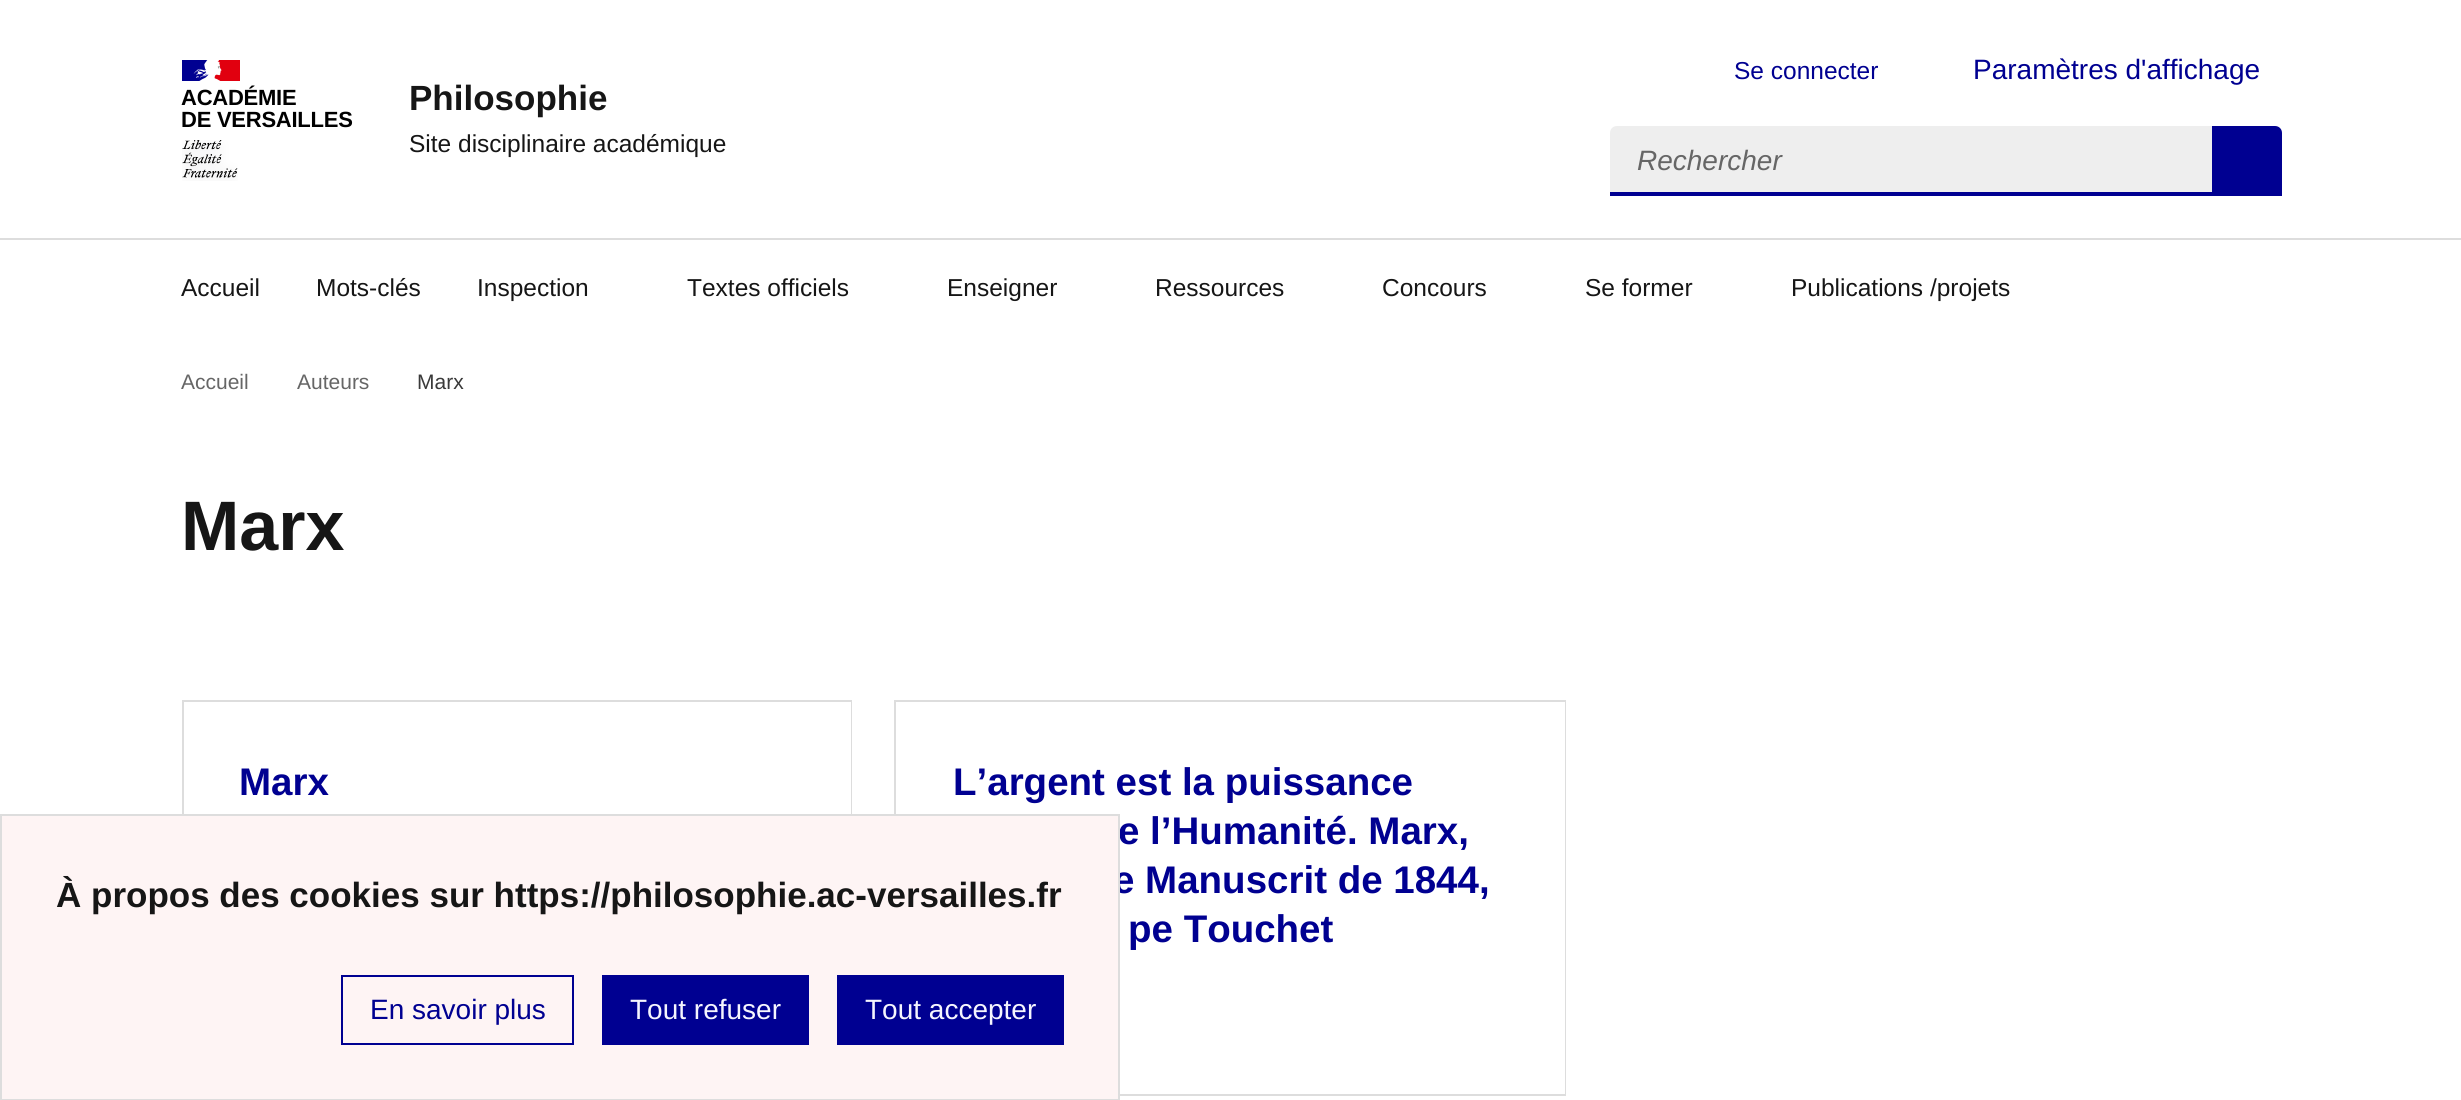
#include <cairo.h>
#include <math.h>
#include <stddef.h>

static cairo_t *ctx;

static void use_color(int r, int g, int b) {
    cairo_set_source_rgb(ctx, r / 255.0, g / 255.0, b / 255.0);
}

static void spaced_text(double x, double y, const char *s, double letter, double word) {
    cairo_move_to(ctx, x, y);
    while (*s) {
        char ch[5] = {0};
        int n = 0;
        do ch[n++] = *s++; while ((*s & 0xC0) == 0x80);
        cairo_show_text(ctx, ch);
        cairo_rel_move_to(ctx, letter + word * (*ch == ' '), 0);
    }
}

static void picture(const char *path, double x, double y, double w, double h) {
    cairo_surface_t *image = cairo_image_surface_create_from_png(path);
    cairo_save(ctx);
    cairo_set_source_surface(ctx, image, x, y);
    cairo_rectangle(ctx, x, y, w, h);
    cairo_fill(ctx);
    cairo_restore(ctx);
    cairo_surface_destroy(image);
}

int main(void) {
    cairo_surface_t *surface = cairo_image_surface_create(CAIRO_FORMAT_RGB24, 2461, 1100);
    ctx = cairo_create(surface);
    cairo_font_options_t *options = cairo_font_options_create();
    cairo_font_options_set_hint_metrics(options, CAIRO_HINT_METRICS_OFF);
    cairo_font_options_set_hint_style(options, CAIRO_HINT_STYLE_NONE);
    cairo_set_font_options(ctx, options);
    cairo_set_miter_limit(ctx, 4);
    use_color(255, 255, 255);
    cairo_paint(ctx);
    use_color(0, 0, 145);
    cairo_rectangle(ctx, 182, 60, 27, 21);
    cairo_fill(ctx);
    use_color(225, 0, 15);
    cairo_rectangle(ctx, 214, 60, 26, 21);
    cairo_fill(ctx);
    picture("img1.png", 193, 60, 29, 21);
    cairo_select_font_face(ctx, "Liberation Sans", CAIRO_FONT_SLANT_NORMAL, CAIRO_FONT_WEIGHT_BOLD);
    cairo_set_font_size(ctx, 22);
    use_color(0, 0, 0);
    spaced_text(181, 105, "ACADÉMIE", -0.25, 0);
    spaced_text(181, 127, "DE VERSAILLES", -0.25, 0);
    picture("img2.png", 182, 140, 56, 41);
    cairo_set_font_size(ctx, 35);
    use_color(22, 22, 22);
    cairo_move_to(ctx, 409, 110);
    cairo_show_text(ctx, "Philosophie");
    cairo_select_font_face(ctx, "Liberation Sans", CAIRO_FONT_SLANT_NORMAL, CAIRO_FONT_WEIGHT_NORMAL);
    cairo_set_font_size(ctx, 24.5);
    cairo_move_to(ctx, 409, 152);
    cairo_show_text(ctx, "Site disciplinaire académique");
    use_color(0, 0, 145);
    cairo_move_to(ctx, 1734, 79);
    cairo_show_text(ctx, "Se connecter");
    cairo_set_font_size(ctx, 28);
    cairo_move_to(ctx, 1973, 79);
    cairo_show_text(ctx, "Paramètres d'affichage");
    use_color(238, 238, 238);
    cairo_new_path(ctx);
    cairo_move_to(ctx, 1617, 126);
    cairo_line_to(ctx, 2212, 126);
    cairo_line_to(ctx, 2212, 196);
    cairo_line_to(ctx, 1610, 196);
    cairo_line_to(ctx, 1610, 133);
    cairo_curve_to(ctx, 1610, 129, 1613, 126, 1617, 126);
    cairo_close_path(ctx);
    cairo_fill(ctx);
    use_color(0, 0, 145);
    cairo_rectangle(ctx, 1610, 192, 602, 4);
    cairo_fill(ctx);
    cairo_select_font_face(ctx, "Liberation Sans", CAIRO_FONT_SLANT_ITALIC, CAIRO_FONT_WEIGHT_NORMAL);
    use_color(102, 102, 102);
    cairo_move_to(ctx, 1637, 170);
    cairo_show_text(ctx, "Rechercher");
    use_color(0, 0, 145);
    cairo_new_path(ctx);
    cairo_move_to(ctx, 2212, 126);
    cairo_line_to(ctx, 2275, 126);
    cairo_curve_to(ctx, 2279, 126, 2282, 129, 2282, 133);
    cairo_line_to(ctx, 2282, 196);
    cairo_line_to(ctx, 2212, 196);
    cairo_close_path(ctx);
    cairo_fill(ctx);
    use_color(221, 221, 221);
    cairo_rectangle(ctx, 0, 238, 2461, 2);
    cairo_fill(ctx);
    cairo_select_font_face(ctx, "Liberation Sans", CAIRO_FONT_SLANT_NORMAL, CAIRO_FONT_WEIGHT_NORMAL);
    cairo_set_font_size(ctx, 24.5);
    use_color(22, 22, 22);
    cairo_move_to(ctx, 181, 296);
    cairo_show_text(ctx, "Accueil");
    cairo_move_to(ctx, 316, 296);
    cairo_show_text(ctx, "Mots-clés");
    cairo_move_to(ctx, 477, 296);
    cairo_show_text(ctx, "Inspection");
    cairo_move_to(ctx, 687, 296);
    cairo_show_text(ctx, "Textes officiels");
    cairo_move_to(ctx, 947, 296);
    cairo_show_text(ctx, "Enseigner");
    cairo_move_to(ctx, 1155, 296);
    cairo_show_text(ctx, "Ressources");
    cairo_move_to(ctx, 1382, 296);
    cairo_show_text(ctx, "Concours");
    cairo_move_to(ctx, 1585, 296);
    cairo_show_text(ctx, "Se former");
    cairo_move_to(ctx, 1791, 296);
    cairo_show_text(ctx, "Publications /projets");
    cairo_set_font_size(ctx, 21);
    use_color(102, 102, 102);
    cairo_move_to(ctx, 181, 389);
    cairo_show_text(ctx, "Accueil");
    cairo_move_to(ctx, 297, 389);
    cairo_show_text(ctx, "Auteurs");
    use_color(58, 58, 58);
    cairo_move_to(ctx, 417, 389);
    cairo_show_text(ctx, "Marx");
    cairo_select_font_face(ctx, "Liberation Sans", CAIRO_FONT_SLANT_NORMAL, CAIRO_FONT_WEIGHT_BOLD);
    cairo_set_font_size(ctx, 70);
    use_color(22, 22, 22);
    cairo_move_to(ctx, 181, 550);
    cairo_show_text(ctx, "Marx");
    use_color(221, 221, 221);
    cairo_rectangle(ctx, 182, 700, 670, 2);
    cairo_fill(ctx);
    cairo_rectangle(ctx, 851, 700, 1, 114);
    cairo_fill(ctx);
    cairo_rectangle(ctx, 182, 700, 2, 114);
    cairo_fill(ctx);
    cairo_set_font_size(ctx, 38.5);
    use_color(0, 0, 145);
    cairo_move_to(ctx, 239, 795);
    cairo_show_text(ctx, "Marx");
    use_color(221, 221, 221);
    cairo_rectangle(ctx, 894, 700, 672, 2);
    cairo_fill(ctx);
    cairo_rectangle(ctx, 1565, 700, 1, 396);
    cairo_fill(ctx);
    cairo_rectangle(ctx, 894, 700, 2, 114);
    cairo_fill(ctx);
    cairo_rectangle(ctx, 1120, 1094, 446, 2);
    cairo_fill(ctx);
    use_color(0, 0, 145);
    cairo_move_to(ctx, 953, 795);
    cairo_show_text(ctx, "L’argent est la puissance");
    cairo_move_to(ctx, 1118, 844);
    cairo_show_text(ctx, "e l’Humanité. Marx,");
    cairo_move_to(ctx, 1113, 893);
    cairo_show_text(ctx, "e Manuscrit de 1844,");
    cairo_move_to(ctx, 1128, 942);
    cairo_show_text(ctx, "pe Touchet");
    use_color(254, 244, 244);
    cairo_rectangle(ctx, 1, 815, 1118, 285);
    cairo_fill_preserve(ctx);
    use_color(221, 221, 221);
    cairo_stroke(ctx);
    cairo_set_font_size(ctx, 35);
    use_color(22, 22, 22);
    cairo_move_to(ctx, 56, 907);
    cairo_show_text(ctx, "À propos des cookies sur https://philosophie.ac-versailles.fr");
    cairo_rectangle(ctx, 342, 976, 231, 68);
    use_color(0, 0, 145);
    cairo_stroke(ctx);
    cairo_select_font_face(ctx, "Liberation Sans", CAIRO_FONT_SLANT_NORMAL, CAIRO_FONT_WEIGHT_NORMAL);
    cairo_set_font_size(ctx, 28);
    cairo_move_to(ctx, 370, 1019);
    cairo_show_text(ctx, "En savoir plus");
    cairo_rectangle(ctx, 602, 975, 207, 70);
    cairo_fill(ctx);
    use_color(245, 245, 254);
    cairo_move_to(ctx, 630, 1019);
    cairo_show_text(ctx, "Tout refuser");
    use_color(0, 0, 145);
    cairo_rectangle(ctx, 837, 975, 227, 70);
    cairo_fill(ctx);
    use_color(245, 245, 254);
    cairo_move_to(ctx, 865, 1019);
    cairo_show_text(ctx, "Tout accepter");
    cairo_surface_write_to_png(surface, "result.png");
    cairo_font_options_destroy(options);
    cairo_destroy(ctx);
    cairo_surface_destroy(surface);
    return 0;
}
